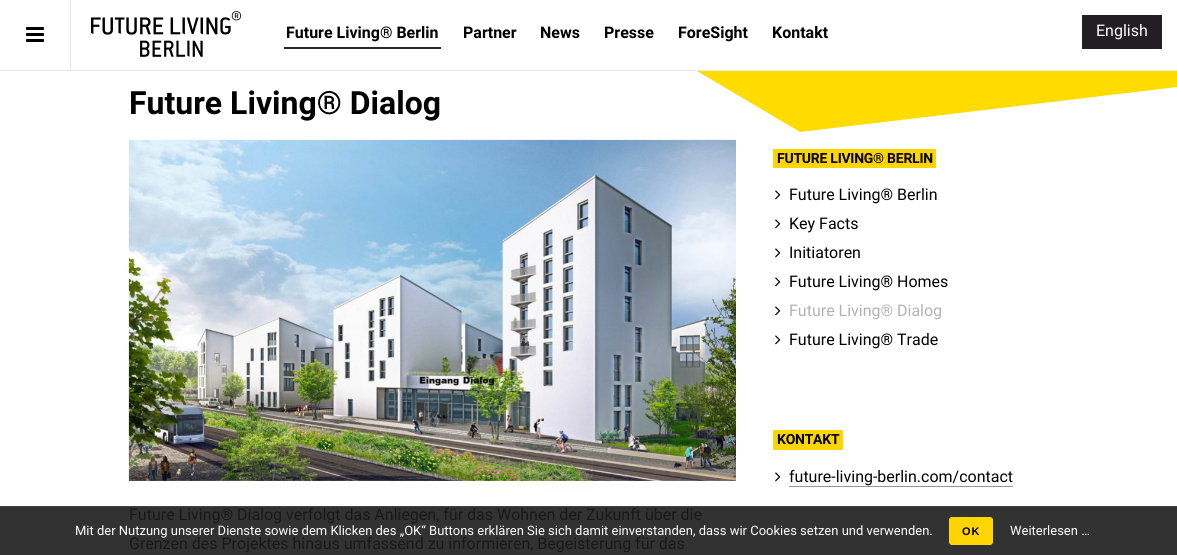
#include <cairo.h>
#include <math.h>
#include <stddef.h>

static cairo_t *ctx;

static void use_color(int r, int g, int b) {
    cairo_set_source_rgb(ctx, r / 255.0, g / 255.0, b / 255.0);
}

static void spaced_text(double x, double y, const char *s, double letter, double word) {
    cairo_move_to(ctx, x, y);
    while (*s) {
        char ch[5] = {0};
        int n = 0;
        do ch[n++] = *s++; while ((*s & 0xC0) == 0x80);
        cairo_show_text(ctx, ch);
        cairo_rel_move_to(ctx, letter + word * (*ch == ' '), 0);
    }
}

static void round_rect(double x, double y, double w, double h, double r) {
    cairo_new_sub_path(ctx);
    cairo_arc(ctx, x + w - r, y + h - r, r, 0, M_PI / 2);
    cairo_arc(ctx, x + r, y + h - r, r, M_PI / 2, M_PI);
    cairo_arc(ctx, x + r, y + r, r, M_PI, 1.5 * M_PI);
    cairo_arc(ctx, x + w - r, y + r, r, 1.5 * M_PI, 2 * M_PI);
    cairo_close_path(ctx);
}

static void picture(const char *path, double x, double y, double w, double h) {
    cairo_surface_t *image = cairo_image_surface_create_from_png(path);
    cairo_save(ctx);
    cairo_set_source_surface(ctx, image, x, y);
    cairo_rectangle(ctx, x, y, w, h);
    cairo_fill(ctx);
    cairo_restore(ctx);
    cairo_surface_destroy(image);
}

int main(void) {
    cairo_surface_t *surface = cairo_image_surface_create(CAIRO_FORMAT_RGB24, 1177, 555);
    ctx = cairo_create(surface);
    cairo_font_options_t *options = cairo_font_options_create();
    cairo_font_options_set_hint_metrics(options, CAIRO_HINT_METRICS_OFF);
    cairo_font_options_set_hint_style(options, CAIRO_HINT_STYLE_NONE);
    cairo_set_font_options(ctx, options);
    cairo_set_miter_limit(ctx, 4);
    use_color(255, 255, 255);
    cairo_paint(ctx);
    use_color(50, 50, 50);
    cairo_rectangle(ctx, 0, 507, 1177, 48);
    cairo_fill(ctx);
    use_color(255, 220, 0);
    cairo_new_path(ctx);
    cairo_move_to(ctx, 577, 0);
    cairo_line_to(ctx, 800, 132);
    cairo_line_to(ctx, 1177, 87);
    cairo_line_to(ctx, 1177, 0);
    cairo_close_path(ctx);
    cairo_fill(ctx);
    use_color(255, 255, 255);
    cairo_rectangle(ctx, 577, 0, 600, 70);
    cairo_fill(ctx);
    use_color(232, 232, 232);
    cairo_rectangle(ctx, 0, 70, 1177, 1);
    cairo_fill(ctx);
    cairo_rectangle(ctx, 70, 0, 1, 71);
    cairo_fill(ctx);
    picture("img1.png", 26, 27, 18, 15);
    picture("img2.png", 91, 11, 150, 46);
    use_color(40, 40, 40);
    cairo_rectangle(ctx, 284, 47, 157, 2);
    cairo_fill(ctx);
    cairo_select_font_face(ctx, "Roboto", CAIRO_FONT_SLANT_NORMAL, CAIRO_FONT_WEIGHT_BOLD);
    cairo_set_font_size(ctx, 16);
    use_color(0, 0, 0);
    cairo_move_to(ctx, 286, 38);
    cairo_show_text(ctx, "Future Living® Berlin");
    cairo_move_to(ctx, 463, 38);
    cairo_show_text(ctx, "Partner");
    cairo_move_to(ctx, 540, 38);
    cairo_show_text(ctx, "News");
    cairo_move_to(ctx, 604, 38);
    cairo_show_text(ctx, "Presse");
    cairo_move_to(ctx, 678, 38);
    cairo_show_text(ctx, "ForeSight");
    cairo_move_to(ctx, 772, 38);
    cairo_show_text(ctx, "Kontakt");
    use_color(35, 30, 36);
    cairo_rectangle(ctx, 1082, 15, 80, 34);
    cairo_fill(ctx);
    cairo_select_font_face(ctx, "Roboto", CAIRO_FONT_SLANT_NORMAL, CAIRO_FONT_WEIGHT_NORMAL);
    use_color(255, 255, 255);
    cairo_move_to(ctx, 1096, 36);
    cairo_show_text(ctx, "English");
    cairo_select_font_face(ctx, "Roboto", CAIRO_FONT_SLANT_NORMAL, CAIRO_FONT_WEIGHT_BOLD);
    cairo_set_font_size(ctx, 32);
    use_color(0, 0, 0);
    cairo_move_to(ctx, 129, 114);
    cairo_show_text(ctx, "Future Living® Dialog");
    picture("img3.png", 128, 139, 608, 342);
    cairo_select_font_face(ctx, "Roboto", CAIRO_FONT_SLANT_NORMAL, CAIRO_FONT_WEIGHT_NORMAL);
    cairo_set_font_size(ctx, 16);
    use_color(24, 24, 24);
    cairo_move_to(ctx, 129, 520);
    cairo_show_text(ctx, "Future Living® Dialog verfolgt das Anliegen, für das Wohnen der Zukunft über die");
    cairo_move_to(ctx, 129, 549);
    cairo_show_text(ctx, "Grenzen des Projektes hinaus umfassend zu informieren, Begeisterung für das");
    use_color(255, 213, 0);
    cairo_rectangle(ctx, 773, 149, 163, 19);
    cairo_fill(ctx);
    cairo_select_font_face(ctx, "Roboto", CAIRO_FONT_SLANT_NORMAL, CAIRO_FONT_WEIGHT_BOLD);
    cairo_set_font_size(ctx, 14);
    use_color(0, 0, 0);
    spaced_text(777, 163, "FUTURE LIVING® BERLIN", -0.25, 0);
    picture("img4.png", 775, 190, 6, 10);
    cairo_select_font_face(ctx, "Roboto", CAIRO_FONT_SLANT_NORMAL, CAIRO_FONT_WEIGHT_NORMAL);
    cairo_set_font_size(ctx, 16);
    cairo_move_to(ctx, 789, 200);
    cairo_show_text(ctx, "Future Living® Berlin");
    picture("img4.png", 775, 219, 6, 10);
    cairo_move_to(ctx, 789, 229);
    cairo_show_text(ctx, "Key Facts");
    picture("img4.png", 775, 248, 6, 10);
    cairo_move_to(ctx, 789, 258);
    cairo_show_text(ctx, "Initiatoren");
    picture("img4.png", 775, 277, 6, 10);
    cairo_move_to(ctx, 789, 287);
    cairo_show_text(ctx, "Future Living® Homes");
    picture("img4.png", 775, 306, 6, 10);
    use_color(179, 179, 179);
    cairo_move_to(ctx, 789, 316);
    cairo_show_text(ctx, "Future Living® Dialog");
    picture("img4.png", 775, 335, 6, 10);
    use_color(0, 0, 0);
    cairo_move_to(ctx, 789, 345);
    cairo_show_text(ctx, "Future Living® Trade");
    use_color(255, 213, 0);
    cairo_rectangle(ctx, 773, 430, 70, 20);
    cairo_fill(ctx);
    cairo_select_font_face(ctx, "Roboto", CAIRO_FONT_SLANT_NORMAL, CAIRO_FONT_WEIGHT_BOLD);
    cairo_set_font_size(ctx, 14);
    use_color(0, 0, 0);
    spaced_text(777, 444, "KONTAKT", -0.25, 0);
    picture("img4.png", 775, 472, 6, 10);
    cairo_select_font_face(ctx, "Roboto", CAIRO_FONT_SLANT_NORMAL, CAIRO_FONT_WEIGHT_NORMAL);
    cairo_set_font_size(ctx, 16);
    cairo_move_to(ctx, 789, 482);
    cairo_show_text(ctx, "future-living-berlin.com/contact");
    use_color(150, 150, 150);
    cairo_rectangle(ctx, 789, 486, 224, 1);
    cairo_fill(ctx);
    use_color(69, 67, 64);
    cairo_rectangle(ctx, 0, 506, 1177, 1);
    cairo_fill(ctx);
    cairo_set_font_size(ctx, 13);
    use_color(255, 255, 255);
    cairo_move_to(ctx, 75, 535);
    cairo_show_text(ctx, "Mit der Nutzung unserer Dienste sowie dem Klicken des „OK“ Buttons erklären Sie sich damit einverstanden, dass wir Cookies setzen und verwenden.");
    use_color(255, 213, 0);
    round_rect(949.5, 517.5, 43, 27, 2.5);
    cairo_fill_preserve(ctx);
    cairo_set_line_width(ctx, 1);
    cairo_stroke(ctx);
    cairo_select_font_face(ctx, "Liberation Sans", CAIRO_FONT_SLANT_NORMAL, CAIRO_FONT_WEIGHT_BOLD);
    cairo_set_font_size(ctx, 11);
    use_color(0, 0, 0);
    spaced_text(962, 535, "OK", 1, 0);
    cairo_select_font_face(ctx, "Roboto", CAIRO_FONT_SLANT_NORMAL, CAIRO_FONT_WEIGHT_NORMAL);
    cairo_set_font_size(ctx, 13);
    use_color(255, 255, 255);
    cairo_move_to(ctx, 1010, 535);
    cairo_show_text(ctx, "Weiterlesen …");
    cairo_surface_write_to_png(surface, "result.png");
    cairo_font_options_destroy(options);
    cairo_destroy(ctx);
    cairo_surface_destroy(surface);
    return 0;
}
